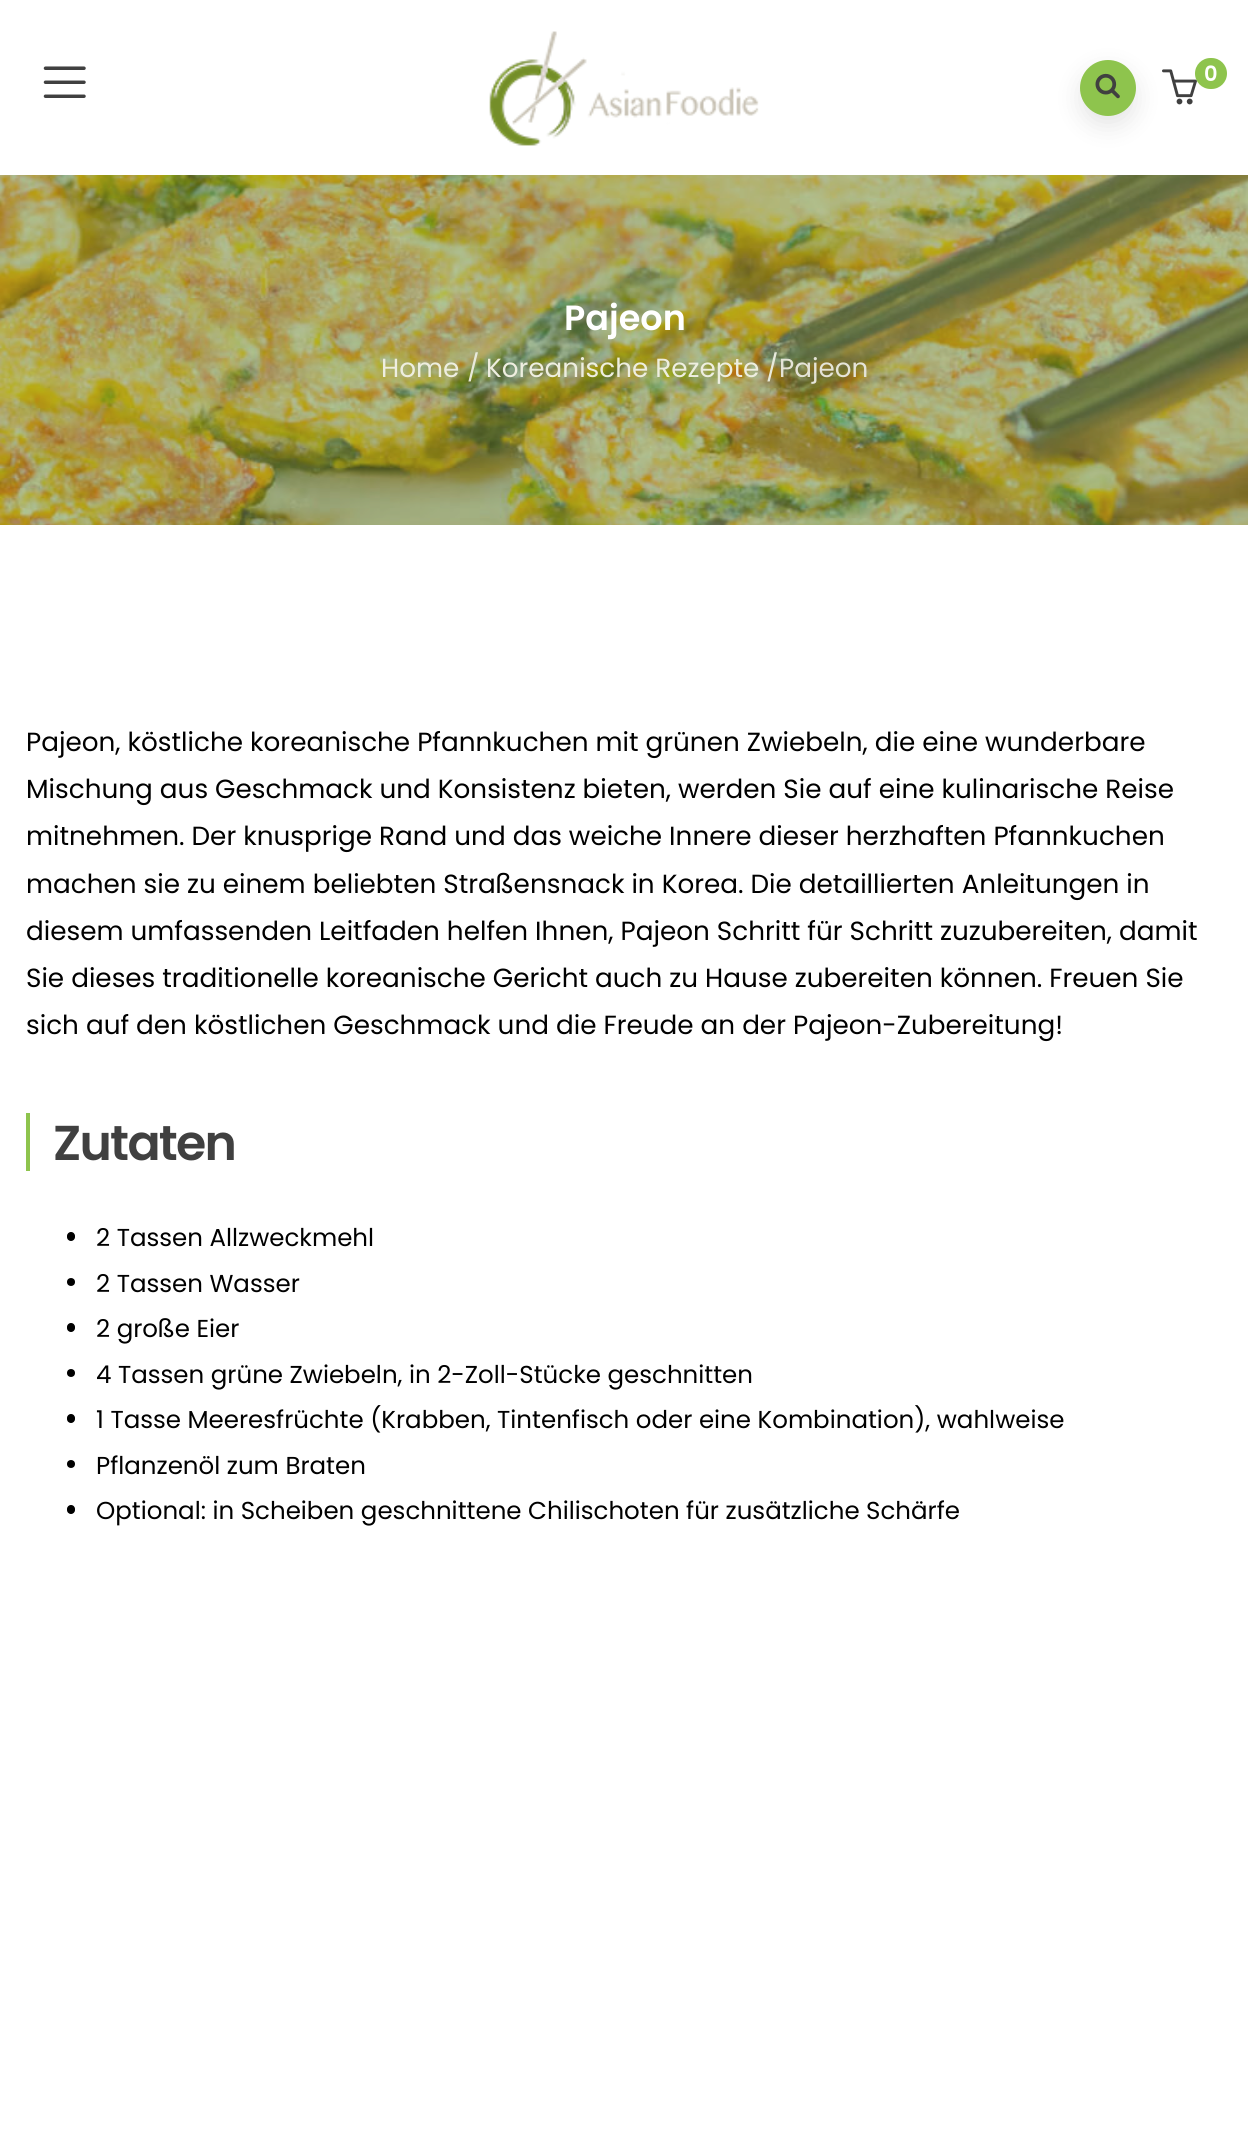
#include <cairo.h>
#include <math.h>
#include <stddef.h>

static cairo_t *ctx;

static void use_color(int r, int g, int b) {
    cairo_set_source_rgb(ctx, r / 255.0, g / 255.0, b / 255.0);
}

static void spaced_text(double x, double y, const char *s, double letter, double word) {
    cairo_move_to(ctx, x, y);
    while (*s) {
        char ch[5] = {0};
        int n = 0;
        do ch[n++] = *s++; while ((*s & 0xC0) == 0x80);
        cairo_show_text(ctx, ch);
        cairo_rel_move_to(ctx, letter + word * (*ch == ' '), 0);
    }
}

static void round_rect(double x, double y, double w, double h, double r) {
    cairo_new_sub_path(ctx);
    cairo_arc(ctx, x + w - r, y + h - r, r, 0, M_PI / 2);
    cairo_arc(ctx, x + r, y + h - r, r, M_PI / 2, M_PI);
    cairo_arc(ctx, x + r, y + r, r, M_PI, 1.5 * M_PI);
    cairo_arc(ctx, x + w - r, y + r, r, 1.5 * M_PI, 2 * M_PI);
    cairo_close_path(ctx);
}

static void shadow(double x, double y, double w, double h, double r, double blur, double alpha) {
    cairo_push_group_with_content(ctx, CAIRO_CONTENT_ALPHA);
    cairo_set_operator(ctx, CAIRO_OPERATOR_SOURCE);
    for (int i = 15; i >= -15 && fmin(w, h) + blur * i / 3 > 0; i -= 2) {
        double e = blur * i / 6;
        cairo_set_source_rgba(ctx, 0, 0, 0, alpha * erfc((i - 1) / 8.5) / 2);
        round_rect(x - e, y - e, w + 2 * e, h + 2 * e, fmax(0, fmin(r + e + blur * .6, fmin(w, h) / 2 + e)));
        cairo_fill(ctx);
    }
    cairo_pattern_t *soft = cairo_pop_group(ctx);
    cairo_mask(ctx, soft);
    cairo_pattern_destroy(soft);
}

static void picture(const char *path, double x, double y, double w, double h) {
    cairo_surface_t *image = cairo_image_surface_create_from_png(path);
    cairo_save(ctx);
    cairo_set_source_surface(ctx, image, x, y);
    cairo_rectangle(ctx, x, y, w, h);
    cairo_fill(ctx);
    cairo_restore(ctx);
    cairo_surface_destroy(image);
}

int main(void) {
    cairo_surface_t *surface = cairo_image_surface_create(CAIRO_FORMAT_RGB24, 1248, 2146);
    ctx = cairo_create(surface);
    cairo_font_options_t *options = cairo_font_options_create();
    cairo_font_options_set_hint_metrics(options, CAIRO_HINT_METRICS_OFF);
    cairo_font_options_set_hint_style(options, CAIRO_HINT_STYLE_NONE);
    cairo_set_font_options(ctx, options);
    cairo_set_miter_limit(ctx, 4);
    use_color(255, 255, 255);
    cairo_paint(ctx);
    picture("img1.png", 43, 66, 43, 32);
    picture("img2.png", 489, 31, 270, 115);
    picture("img4.png", 1162, 69, 35, 36);
    use_color(0, 0, 0);
    shadow(1080, 70, 56, 56, 28, 12, 0.1);
    use_color(142, 196, 77);
    cairo_arc(ctx, 1108, 88, 28, 0, 2 * M_PI);
    cairo_fill(ctx);
    picture("img3.png", 1095, 73, 25, 26);
    round_rect(1195, 58, 32, 31, 15.5);
    cairo_fill(ctx);
    cairo_select_font_face(ctx, "Poppins SemiBold", CAIRO_FONT_SLANT_NORMAL, CAIRO_FONT_WEIGHT_NORMAL);
    cairo_set_font_size(ctx, 21);
    use_color(255, 255, 255);
    cairo_move_to(ctx, 1204, 81);
    cairo_show_text(ctx, "0");
    picture("img5.png", 0, 175, 1248, 350);
    cairo_set_font_size(ctx, 35);
    cairo_move_to(ctx, 564, 330);
    cairo_show_text(ctx, "Pajeon");
    cairo_select_font_face(ctx, "Poppins", CAIRO_FONT_SLANT_NORMAL, CAIRO_FONT_WEIGHT_NORMAL);
    cairo_set_font_size(ctx, 26.25);
    use_color(238, 238, 224);
    cairo_move_to(ctx, 381, 377);
    cairo_show_text(ctx, "Home");
    use_color(232, 234, 220);
    cairo_move_to(ctx, 467, 377);
    cairo_show_text(ctx, "/");
    use_color(238, 238, 224);
    cairo_move_to(ctx, 486, 377);
    cairo_show_text(ctx, "Koreanische Rezepte");
    use_color(232, 234, 220);
    cairo_move_to(ctx, 766, 377);
    cairo_show_text(ctx, "/");
    use_color(229, 228, 216);
    cairo_move_to(ctx, 779, 377);
    cairo_show_text(ctx, "Pajeon");
    use_color(0, 0, 0);
    cairo_move_to(ctx, 26, 751);
    cairo_show_text(ctx, "Pajeon, köstliche koreanische Pfannkuchen mit grünen Zwiebeln, die eine wunderbare");
    cairo_move_to(ctx, 26, 798);
    cairo_show_text(ctx, "Mischung aus Geschmack und Konsistenz bieten, werden Sie auf eine kulinarische Reise");
    cairo_move_to(ctx, 26, 845);
    cairo_show_text(ctx, "mitnehmen. Der knusprige Rand und das weiche Innere dieser herzhaften Pfannkuchen");
    cairo_move_to(ctx, 26, 893);
    cairo_show_text(ctx, "machen sie zu einem beliebten Straßensnack in Korea. Die detaillierten Anleitungen in");
    cairo_move_to(ctx, 26, 940);
    cairo_show_text(ctx, "diesem umfassenden Leitfaden helfen Ihnen, Pajeon Schritt für Schritt zuzubereiten, damit");
    cairo_move_to(ctx, 26, 987);
    cairo_show_text(ctx, "Sie dieses traditionelle koreanische Gericht auch zu Hause zubereiten können. Freuen Sie");
    cairo_move_to(ctx, 26, 1034);
    cairo_show_text(ctx, "sich auf den köstlichen Geschmack und die Freude an der Pajeon-Zubereitung!");
    use_color(142, 196, 77);
    cairo_rectangle(ctx, 26, 1113, 4, 58);
    cairo_fill(ctx);
    cairo_select_font_face(ctx, "Poppins SemiBold", CAIRO_FONT_SLANT_NORMAL, CAIRO_FONT_WEIGHT_NORMAL);
    cairo_set_font_size(ctx, 49);
    use_color(64, 64, 64);
    spaced_text(53, 1160, "Zutaten", -1.75, 0);
    use_color(0, 0, 0);
    round_rect(67, 1232, 8, 9, 4);
    cairo_fill(ctx);
    cairo_select_font_face(ctx, "Poppins", CAIRO_FONT_SLANT_NORMAL, CAIRO_FONT_WEIGHT_NORMAL);
    cairo_set_font_size(ctx, 24.5);
    cairo_move_to(ctx, 96, 1246);
    cairo_show_text(ctx, "2 Tassen Allzweckmehl");
    cairo_new_path(ctx);
    cairo_arc(ctx, 71, 1282, 4, 0, 2 * M_PI);
    cairo_fill(ctx);
    cairo_move_to(ctx, 96, 1292);
    cairo_show_text(ctx, "2 Tassen Wasser");
    round_rect(67, 1323, 8, 9, 4);
    cairo_fill(ctx);
    cairo_move_to(ctx, 96, 1337);
    cairo_show_text(ctx, "2 große Eier");
    cairo_new_path(ctx);
    cairo_arc(ctx, 71, 1373, 4, 0, 2 * M_PI);
    cairo_fill(ctx);
    cairo_move_to(ctx, 96, 1383);
    cairo_show_text(ctx, "4 Tassen grüne Zwiebeln, in 2-Zoll-Stücke geschnitten");
    round_rect(67, 1414, 8, 9, 4);
    cairo_fill(ctx);
    cairo_move_to(ctx, 96, 1428);
    cairo_show_text(ctx, "1 Tasse Meeresfrüchte (Krabben, Tintenfisch oder eine Kombination), wahlweise");
    cairo_new_path(ctx);
    cairo_arc(ctx, 71, 1464, 4, 0, 2 * M_PI);
    cairo_fill(ctx);
    cairo_move_to(ctx, 96, 1474);
    cairo_show_text(ctx, "Pflanzenöl zum Braten");
    round_rect(67, 1505, 8, 9, 4);
    cairo_fill(ctx);
    cairo_move_to(ctx, 96, 1519);
    cairo_show_text(ctx, "Optional: in Scheiben geschnittene Chilischoten für zusätzliche Schärfe");
    cairo_surface_write_to_png(surface, "result.png");
    cairo_font_options_destroy(options);
    cairo_destroy(ctx);
    cairo_surface_destroy(surface);
    return 0;
}
